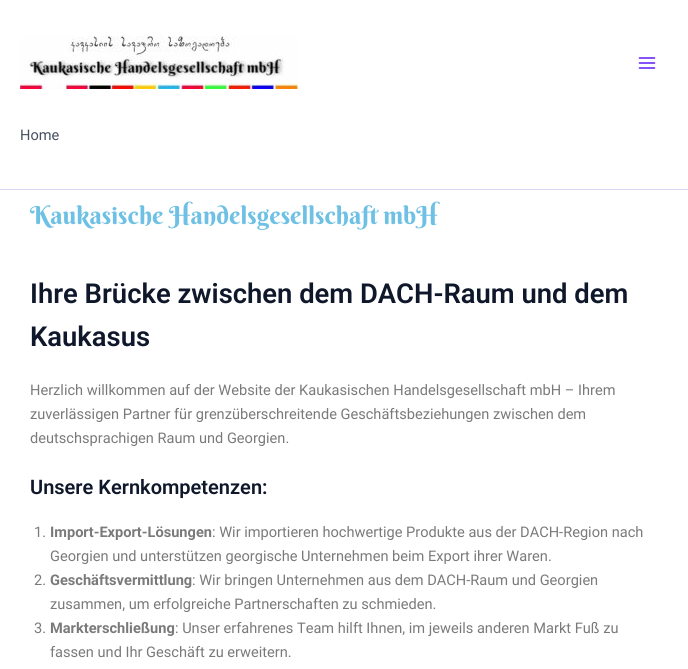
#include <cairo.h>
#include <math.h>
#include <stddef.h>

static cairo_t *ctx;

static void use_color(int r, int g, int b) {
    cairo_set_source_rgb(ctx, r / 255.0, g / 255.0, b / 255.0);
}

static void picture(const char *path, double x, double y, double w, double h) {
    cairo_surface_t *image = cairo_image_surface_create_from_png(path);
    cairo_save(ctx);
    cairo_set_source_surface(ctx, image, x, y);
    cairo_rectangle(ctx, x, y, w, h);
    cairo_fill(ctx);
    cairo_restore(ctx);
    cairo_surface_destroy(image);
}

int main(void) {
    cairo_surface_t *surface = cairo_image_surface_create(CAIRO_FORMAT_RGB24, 688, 669);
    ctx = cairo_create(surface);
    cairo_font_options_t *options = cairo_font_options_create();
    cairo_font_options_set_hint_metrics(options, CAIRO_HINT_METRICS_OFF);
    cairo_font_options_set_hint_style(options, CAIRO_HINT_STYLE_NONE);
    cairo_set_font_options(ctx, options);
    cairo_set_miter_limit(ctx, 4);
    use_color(255, 255, 255);
    cairo_paint(ctx);
    use_color(216, 216, 245);
    cairo_rectangle(ctx, 0, 189, 688, 1);
    cairo_fill(ctx);
    picture("img1.png", 20, 36, 278, 53);
    picture("img2.png", 638, 57, 18, 12);
    cairo_select_font_face(ctx, "Roboto", CAIRO_FONT_SLANT_NORMAL, CAIRO_FONT_WEIGHT_NORMAL);
    cairo_set_font_size(ctx, 14.6);
    use_color(69, 79, 94);
    cairo_move_to(ctx, 20, 140);
    cairo_show_text(ctx, "Home");
    cairo_select_font_face(ctx, "Berkshire Swash", CAIRO_FONT_SLANT_NORMAL, CAIRO_FONT_WEIGHT_NORMAL);
    cairo_set_font_size(ctx, 24.75);
    use_color(110, 193, 228);
    cairo_move_to(ctx, 30, 224);
    cairo_show_text(ctx, "Kaukasische Handelsgesellschaft mbH");
    cairo_select_font_face(ctx, "Roboto SemiBold", CAIRO_FONT_SLANT_NORMAL, CAIRO_FONT_WEIGHT_NORMAL);
    cairo_set_font_size(ctx, 27.4);
    use_color(15, 23, 42);
    cairo_move_to(ctx, 30, 303);
    cairo_show_text(ctx, "Ihre Brücke zwischen dem DACH-Raum und dem");
    cairo_move_to(ctx, 30, 346);
    cairo_show_text(ctx, "Kaukasus");
    cairo_select_font_face(ctx, "Roboto", CAIRO_FONT_SLANT_NORMAL, CAIRO_FONT_WEIGHT_NORMAL);
    cairo_set_font_size(ctx, 14.6);
    use_color(122, 122, 122);
    cairo_move_to(ctx, 30, 395);
    cairo_show_text(ctx, "Herzlich willkommen auf der Website der Kaukasischen Handelsgesellschaft mbH – Ihrem");
    cairo_move_to(ctx, 30, 419);
    cairo_show_text(ctx, "zuverlässigen Partner für grenzüberschreitende Geschäftsbeziehungen zwischen dem");
    cairo_move_to(ctx, 30, 443);
    cairo_show_text(ctx, "deutschsprachigen Raum und Georgien.");
    cairo_select_font_face(ctx, "Roboto SemiBold", CAIRO_FONT_SLANT_NORMAL, CAIRO_FONT_WEIGHT_NORMAL);
    cairo_set_font_size(ctx, 20);
    use_color(15, 23, 42);
    cairo_move_to(ctx, 30, 494);
    cairo_show_text(ctx, "Unsere Kernkompetenzen:");
    cairo_select_font_face(ctx, "Roboto", CAIRO_FONT_SLANT_NORMAL, CAIRO_FONT_WEIGHT_NORMAL);
    cairo_set_font_size(ctx, 14.6);
    use_color(122, 122, 122);
    cairo_move_to(ctx, 34, 537);
    cairo_show_text(ctx, "1.");
    cairo_select_font_face(ctx, "Roboto", CAIRO_FONT_SLANT_NORMAL, CAIRO_FONT_WEIGHT_BOLD);
    cairo_move_to(ctx, 50, 537);
    cairo_show_text(ctx, "Import-Export-Lösungen");
    cairo_select_font_face(ctx, "Roboto", CAIRO_FONT_SLANT_NORMAL, CAIRO_FONT_WEIGHT_NORMAL);
    cairo_move_to(ctx, 212, 537);
    cairo_show_text(ctx, ": Wir importieren hochwertige Produkte aus der DACH-Region nach");
    cairo_move_to(ctx, 50, 561);
    cairo_show_text(ctx, "Georgien und unterstützen georgische Unternehmen beim Export ihrer Waren.");
    cairo_move_to(ctx, 34, 585);
    cairo_show_text(ctx, "2.");
    cairo_select_font_face(ctx, "Roboto", CAIRO_FONT_SLANT_NORMAL, CAIRO_FONT_WEIGHT_BOLD);
    cairo_move_to(ctx, 50, 585);
    cairo_show_text(ctx, "Geschäftsvermittlung");
    cairo_select_font_face(ctx, "Roboto", CAIRO_FONT_SLANT_NORMAL, CAIRO_FONT_WEIGHT_NORMAL);
    cairo_move_to(ctx, 192, 585);
    cairo_show_text(ctx, ": Wir bringen Unternehmen aus dem DACH-Raum und Georgien");
    cairo_move_to(ctx, 50, 609);
    cairo_show_text(ctx, "zusammen, um erfolgreiche Partnerschaften zu schmieden.");
    cairo_move_to(ctx, 34, 633);
    cairo_show_text(ctx, "3.");
    cairo_select_font_face(ctx, "Roboto", CAIRO_FONT_SLANT_NORMAL, CAIRO_FONT_WEIGHT_BOLD);
    cairo_move_to(ctx, 50, 633);
    cairo_show_text(ctx, "Markterschließung");
    cairo_select_font_face(ctx, "Roboto", CAIRO_FONT_SLANT_NORMAL, CAIRO_FONT_WEIGHT_NORMAL);
    cairo_move_to(ctx, 175, 633);
    cairo_show_text(ctx, ": Unser erfahrenes Team hilft Ihnen, im jeweils anderen Markt Fuß zu");
    cairo_move_to(ctx, 50, 657);
    cairo_show_text(ctx, "fassen und Ihr Geschäft zu erweitern.");
    cairo_surface_write_to_png(surface, "result.png");
    cairo_font_options_destroy(options);
    cairo_destroy(ctx);
    cairo_surface_destroy(surface);
    return 0;
}
